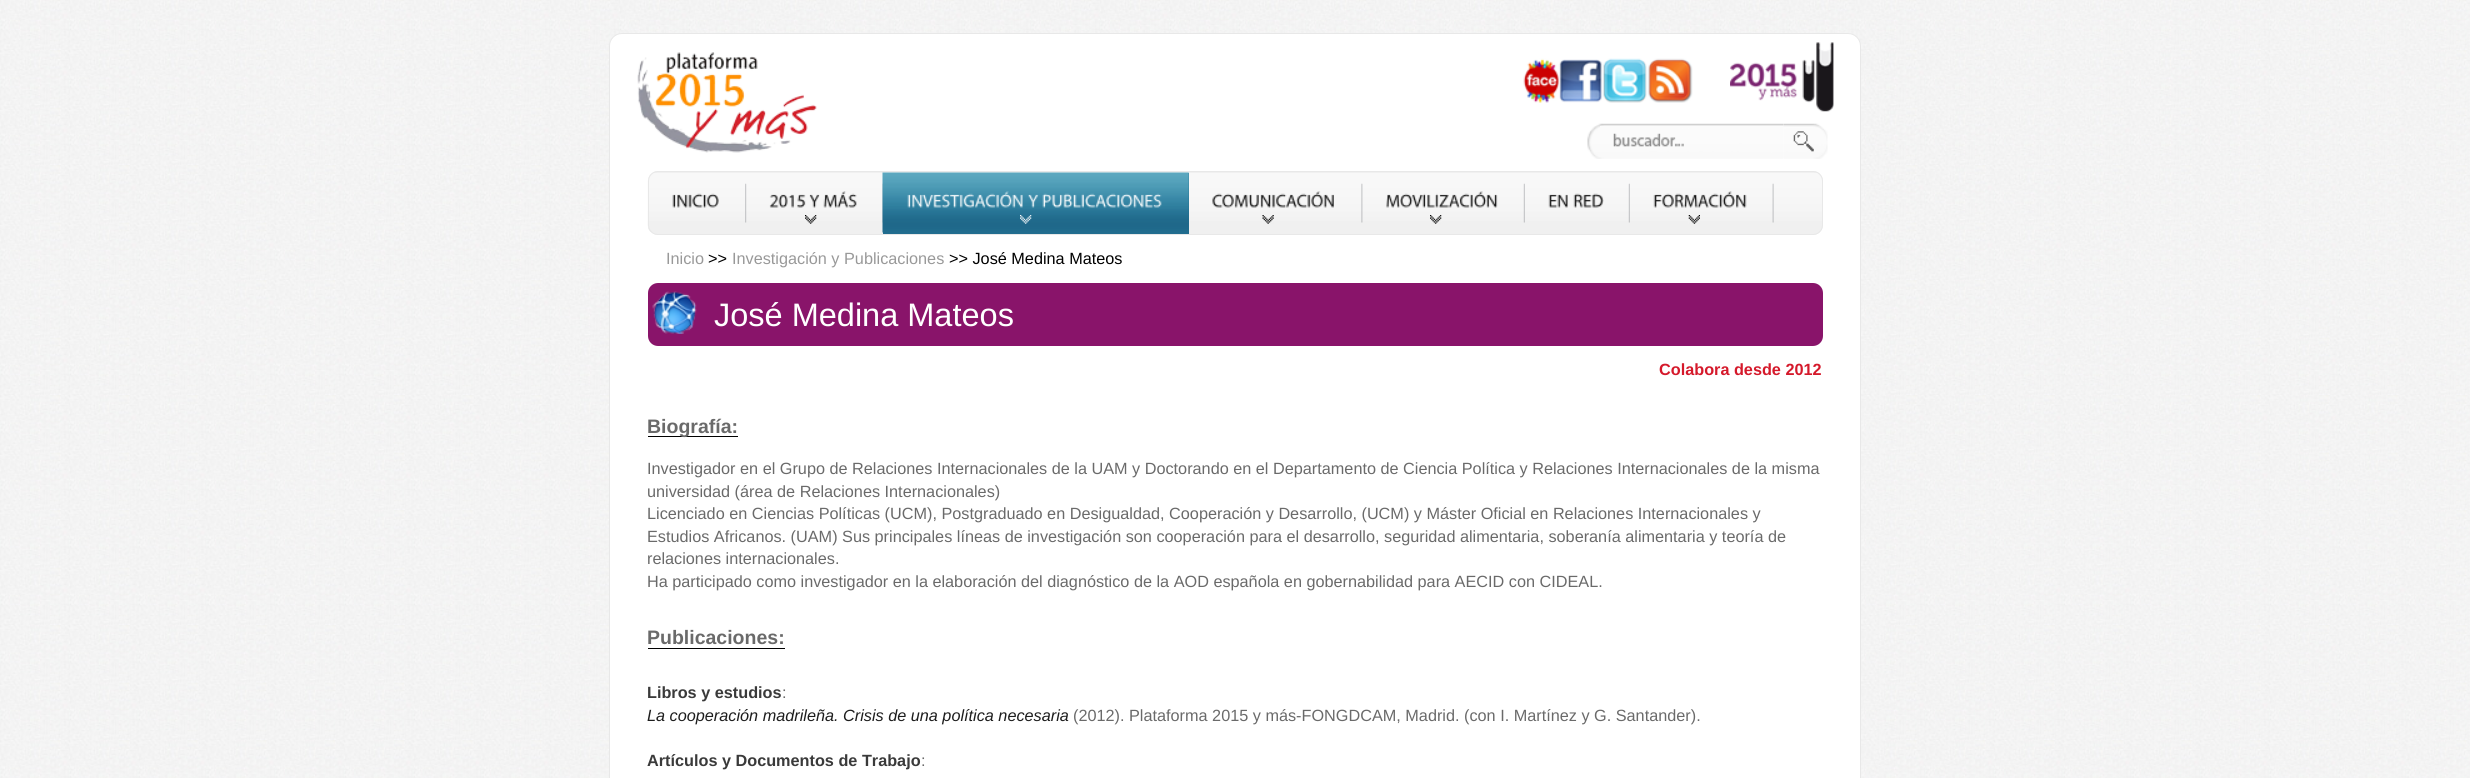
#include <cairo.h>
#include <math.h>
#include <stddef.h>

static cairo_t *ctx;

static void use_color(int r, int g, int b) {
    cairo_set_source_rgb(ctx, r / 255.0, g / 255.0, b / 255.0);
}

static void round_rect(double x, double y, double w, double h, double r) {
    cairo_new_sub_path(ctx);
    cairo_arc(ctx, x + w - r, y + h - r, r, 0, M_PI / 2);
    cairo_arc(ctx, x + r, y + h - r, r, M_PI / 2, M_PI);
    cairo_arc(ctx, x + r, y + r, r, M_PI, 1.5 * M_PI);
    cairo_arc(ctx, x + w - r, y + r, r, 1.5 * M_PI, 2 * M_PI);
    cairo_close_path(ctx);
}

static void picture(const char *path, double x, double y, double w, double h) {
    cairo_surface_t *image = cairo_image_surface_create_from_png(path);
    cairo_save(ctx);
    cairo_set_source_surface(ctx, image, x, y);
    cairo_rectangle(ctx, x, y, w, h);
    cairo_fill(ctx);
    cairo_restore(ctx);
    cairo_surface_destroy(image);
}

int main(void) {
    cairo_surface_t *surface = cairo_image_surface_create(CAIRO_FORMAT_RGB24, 2470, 778);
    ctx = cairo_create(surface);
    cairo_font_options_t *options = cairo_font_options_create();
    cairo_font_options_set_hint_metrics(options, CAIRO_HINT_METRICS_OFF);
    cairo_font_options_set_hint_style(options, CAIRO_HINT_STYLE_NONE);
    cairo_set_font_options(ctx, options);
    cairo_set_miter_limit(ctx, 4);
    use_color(255, 255, 255);
    cairo_paint(ctx);
    picture("img1.png", 0, 0, 2470, 778);
    use_color(255, 255, 255);
    round_rect(609.5, 33.5, 1251, 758, 12.5);
    cairo_fill_preserve(ctx);
    use_color(232, 232, 232);
    cairo_set_line_width(ctx, 1);
    cairo_stroke(ctx);
    picture("img2.png", 637, 52, 180, 101);
    picture("img3.png", 1523, 58, 36, 45);
    picture("img4.png", 1558, 59, 45, 44);
    picture("img5.png", 1603, 58, 44, 45);
    picture("img6.png", 1647, 58, 46, 45);
    picture("img7.png", 1730, 42, 104, 70);
    picture("img8.png", 1587, 123, 197, 36);
    use_color(251, 251, 251);
    cairo_rectangle(ctx, 1600, 126, 183, 2);
    cairo_fill(ctx);
    picture("img9.png", 1613, 133, 71, 14);
    picture("img10.png", 1784, 123, 44, 36);
    use_color(240, 240, 240);
    round_rect(648, 171, 1175, 64, 10);
    cairo_fill(ctx);
    picture("img11.png", 647, 173, 1175, 59);
    round_rect(648.5, 171.5, 1174, 63, 9.5);
    use_color(232, 232, 232);
    cairo_stroke(ctx);
    picture("img12.png", 745, 183, 2, 40);
    picture("img13.png", 672, 193, 47, 15);
    picture("img14.png", 882, 183, 1, 40);
    picture("img15.png", 769, 194, 37, 14);
    picture("img16.png", 809, 194, 11, 14);
    picture("img17.png", 823, 191, 34, 17);
    picture("img18.png", 805, 215, 12, 9);
    use_color(34, 109, 143);
    cairo_rectangle(ctx, 883, 173, 306, 61);
    cairo_fill(ctx);
    picture("img19.png", 882, 172, 307, 61);
    picture("img20.png", 907, 191, 116, 17);
    picture("img21.png", 1028, 194, 11, 14);
    picture("img22.png", 1042, 193, 120, 15);
    picture("img23.png", 1020, 215, 12, 9);
    picture("img24.png", 1361, 183, 2, 40);
    picture("img25.png", 1212, 191, 122, 17);
    picture("img26.png", 1262, 215, 12, 9);
    picture("img27.png", 1523, 183, 2, 40);
    picture("img28.png", 1386, 191, 112, 17);
    picture("img29.png", 1430, 215, 12, 9);
    picture("img27.png", 1628, 183, 2, 40);
    picture("img30.png", 1548, 194, 20, 14);
    picture("img31.png", 1573, 193, 31, 15);
    picture("img32.png", 1772, 183, 2, 40);
    picture("img33.png", 1653, 191, 94, 17);
    picture("img34.png", 1688, 215, 12, 9);
    cairo_select_font_face(ctx, "Liberation Sans", CAIRO_FONT_SLANT_NORMAL, CAIRO_FONT_WEIGHT_NORMAL);
    cairo_set_font_size(ctx, 16.25);
    use_color(153, 153, 153);
    cairo_move_to(ctx, 666, 264);
    cairo_show_text(ctx, "Inicio");
    use_color(0, 0, 0);
    cairo_move_to(ctx, 708, 264);
    cairo_show_text(ctx, ">>");
    use_color(153, 153, 153);
    cairo_move_to(ctx, 732, 264);
    cairo_show_text(ctx, "Investigación y Publicaciones");
    use_color(0, 0, 0);
    cairo_move_to(ctx, 949, 264);
    cairo_show_text(ctx, ">> José Medina Mateos");
    use_color(137, 20, 106);
    round_rect(648, 283, 1175, 63, 10);
    cairo_fill(ctx);
    picture("img35.png", 652, 291, 45, 43);
    cairo_set_font_size(ctx, 32.5);
    use_color(255, 255, 255);
    cairo_move_to(ctx, 714, 326);
    cairo_show_text(ctx, "José Medina Mateos");
    cairo_select_font_face(ctx, "Liberation Sans", CAIRO_FONT_SLANT_NORMAL, CAIRO_FONT_WEIGHT_BOLD);
    cairo_set_font_size(ctx, 16.25);
    use_color(213, 25, 43);
    cairo_move_to(ctx, 1659, 375);
    cairo_show_text(ctx, "Colabora desde 2012");
    use_color(0, 0, 0);
    cairo_rectangle(ctx, 648, 436, 90, 1);
    cairo_fill(ctx);
    cairo_set_font_size(ctx, 19.5);
    use_color(106, 106, 106);
    cairo_move_to(ctx, 647, 433);
    cairo_show_text(ctx, "Biografía:");
    cairo_select_font_face(ctx, "Liberation Sans", CAIRO_FONT_SLANT_NORMAL, CAIRO_FONT_WEIGHT_NORMAL);
    cairo_set_font_size(ctx, 16.25);
    cairo_move_to(ctx, 647, 474);
    cairo_show_text(ctx, "Investigador en el Grupo de Relaciones Internacionales de la UAM y Doctorando en el Departamento de Ciencia Política y Relaciones Internacionales de la misma");
    cairo_move_to(ctx, 647, 497);
    cairo_show_text(ctx, "universidad (área de Relaciones Internacionales)");
    cairo_move_to(ctx, 647, 519);
    cairo_show_text(ctx, "Licenciado en Ciencias Políticas (UCM), Postgraduado en Desigualdad, Cooperación y Desarrollo, (UCM) y Máster Oficial en Relaciones Internacionales y");
    cairo_move_to(ctx, 647, 542);
    cairo_show_text(ctx, "Estudios Africanos. (UAM) Sus principales líneas de investigación son cooperación para el desarrollo, seguridad alimentaria, soberanía alimentaria y teoría de");
    cairo_move_to(ctx, 647, 564);
    cairo_show_text(ctx, "relaciones internacionales.");
    cairo_move_to(ctx, 647, 587);
    cairo_show_text(ctx, "Ha participado como investigador en la elaboración del diagnóstico de la AOD española en gobernabilidad para AECID con CIDEAL.");
    cairo_select_font_face(ctx, "Liberation Sans", CAIRO_FONT_SLANT_NORMAL, CAIRO_FONT_WEIGHT_BOLD);
    cairo_set_font_size(ctx, 19.5);
    cairo_move_to(ctx, 647, 644);
    cairo_show_text(ctx, "Publicaciones:");
    use_color(0, 0, 0);
    cairo_rectangle(ctx, 648, 648, 137, 1);
    cairo_fill(ctx);
    cairo_set_font_size(ctx, 16.25);
    use_color(58, 58, 58);
    cairo_move_to(ctx, 647, 698);
    cairo_show_text(ctx, "Libros y estudios");
    cairo_select_font_face(ctx, "Liberation Sans", CAIRO_FONT_SLANT_NORMAL, CAIRO_FONT_WEIGHT_NORMAL);
    use_color(106, 106, 106);
    cairo_move_to(ctx, 782, 698);
    cairo_show_text(ctx, ":");
    cairo_select_font_face(ctx, "Liberation Sans", CAIRO_FONT_SLANT_ITALIC, CAIRO_FONT_WEIGHT_NORMAL);
    use_color(29, 29, 29);
    cairo_move_to(ctx, 647, 721);
    cairo_show_text(ctx, "La cooperación madrileña. Crisis de una política necesaria");
    cairo_select_font_face(ctx, "Liberation Sans", CAIRO_FONT_SLANT_NORMAL, CAIRO_FONT_WEIGHT_NORMAL);
    use_color(106, 106, 106);
    cairo_move_to(ctx, 1073, 721);
    cairo_show_text(ctx, "(2012). Plataforma 2015 y más-FONGDCAM, Madrid. (con I. Martínez y G. Santander).");
    cairo_select_font_face(ctx, "Liberation Sans", CAIRO_FONT_SLANT_NORMAL, CAIRO_FONT_WEIGHT_BOLD);
    use_color(58, 58, 58);
    cairo_move_to(ctx, 647, 766);
    cairo_show_text(ctx, "Artículos y Documentos de Trabajo");
    cairo_select_font_face(ctx, "Liberation Sans", CAIRO_FONT_SLANT_NORMAL, CAIRO_FONT_WEIGHT_NORMAL);
    use_color(106, 106, 106);
    cairo_move_to(ctx, 921, 766);
    cairo_show_text(ctx, ":");
    cairo_surface_write_to_png(surface, "result.png");
    cairo_font_options_destroy(options);
    cairo_destroy(ctx);
    cairo_surface_destroy(surface);
    return 0;
}
